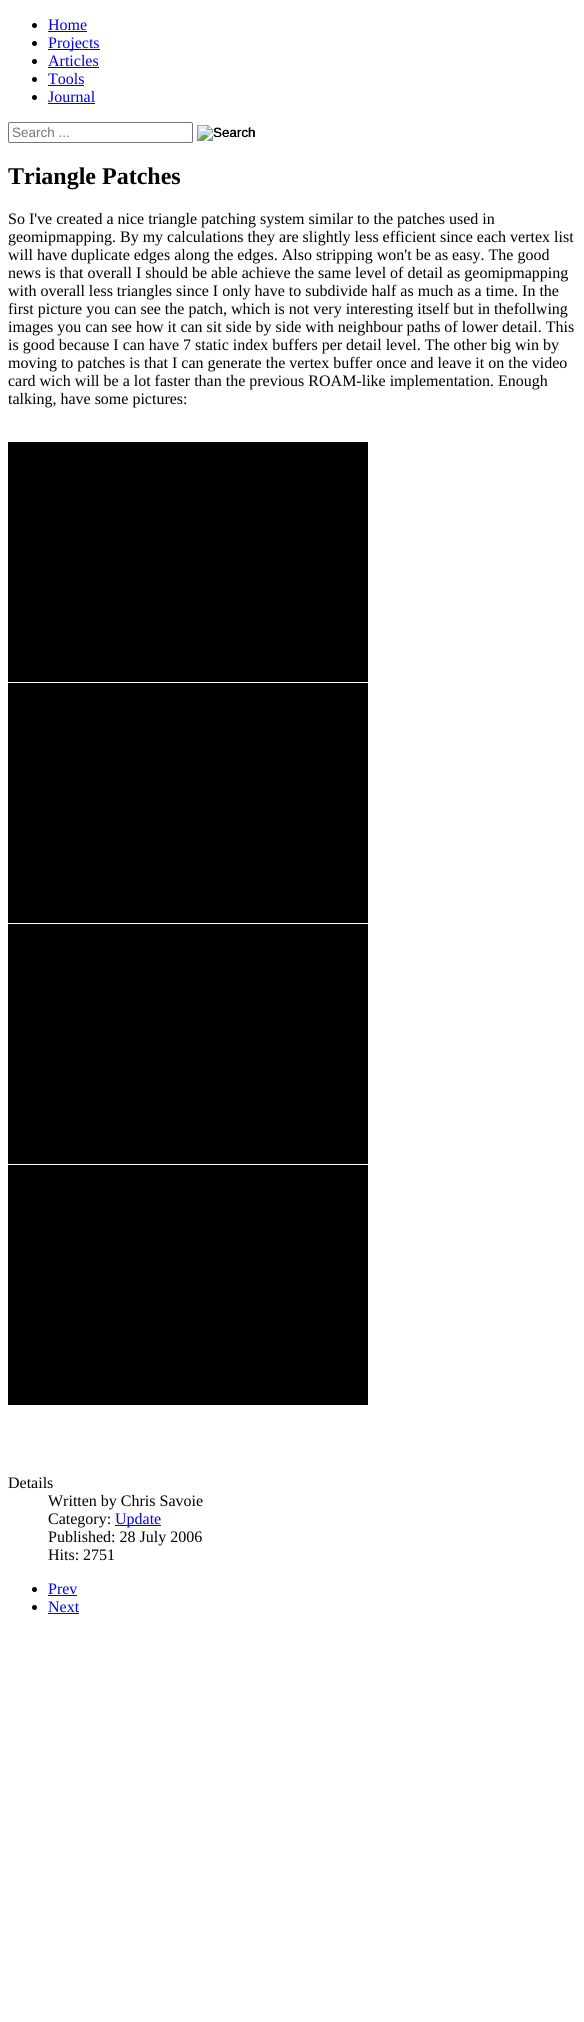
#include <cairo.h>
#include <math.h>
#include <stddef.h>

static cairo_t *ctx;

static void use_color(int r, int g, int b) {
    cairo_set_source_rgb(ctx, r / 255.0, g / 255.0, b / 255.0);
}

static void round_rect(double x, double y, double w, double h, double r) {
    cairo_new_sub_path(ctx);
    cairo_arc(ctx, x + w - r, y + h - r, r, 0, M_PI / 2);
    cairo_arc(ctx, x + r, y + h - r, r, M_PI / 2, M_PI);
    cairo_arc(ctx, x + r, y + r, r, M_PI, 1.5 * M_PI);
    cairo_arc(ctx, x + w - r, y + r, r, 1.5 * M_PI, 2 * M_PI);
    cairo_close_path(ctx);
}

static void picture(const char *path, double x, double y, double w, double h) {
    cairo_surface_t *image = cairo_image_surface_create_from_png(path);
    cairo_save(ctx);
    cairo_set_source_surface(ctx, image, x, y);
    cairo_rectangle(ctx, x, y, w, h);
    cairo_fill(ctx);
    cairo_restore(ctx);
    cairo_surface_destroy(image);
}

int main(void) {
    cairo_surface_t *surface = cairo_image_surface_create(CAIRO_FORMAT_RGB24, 584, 2022);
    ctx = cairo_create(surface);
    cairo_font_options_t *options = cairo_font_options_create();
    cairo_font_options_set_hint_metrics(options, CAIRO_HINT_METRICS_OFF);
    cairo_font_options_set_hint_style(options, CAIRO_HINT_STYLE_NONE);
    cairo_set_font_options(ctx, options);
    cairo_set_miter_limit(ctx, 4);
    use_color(255, 255, 255);
    cairo_paint(ctx);
    use_color(0, 0, 0);
    cairo_arc(ctx, 34.5, 25.5, 2.5, 0, 2 * M_PI);
    cairo_fill(ctx);
    cairo_select_font_face(ctx, "Liberation Serif", CAIRO_FONT_SLANT_NORMAL, CAIRO_FONT_WEIGHT_NORMAL);
    cairo_set_font_size(ctx, 16);
    use_color(0, 0, 238);
    cairo_move_to(ctx, 48, 30);
    cairo_show_text(ctx, "Home");
    cairo_rectangle(ctx, 48, 31, 39, 1);
    cairo_fill(ctx);
    use_color(0, 0, 0);
    cairo_arc(ctx, 34.5, 43.5, 2.5, 0, 2 * M_PI);
    cairo_fill(ctx);
    use_color(0, 0, 238);
    cairo_rectangle(ctx, 48, 49, 52, 1);
    cairo_fill(ctx);
    cairo_move_to(ctx, 48, 48);
    cairo_show_text(ctx, "Projects");
    use_color(0, 0, 0);
    cairo_new_path(ctx);
    cairo_arc(ctx, 34.5, 61.5, 2.5, 0, 2 * M_PI);
    cairo_fill(ctx);
    use_color(0, 0, 238);
    cairo_move_to(ctx, 48, 66);
    cairo_show_text(ctx, "Articles");
    cairo_rectangle(ctx, 48, 67, 51, 1);
    cairo_fill(ctx);
    use_color(0, 0, 0);
    cairo_arc(ctx, 34.5, 79.5, 2.5, 0, 2 * M_PI);
    cairo_fill(ctx);
    use_color(0, 0, 238);
    cairo_move_to(ctx, 48, 84);
    cairo_show_text(ctx, "Tools");
    cairo_rectangle(ctx, 48, 85, 36, 1);
    cairo_fill(ctx);
    use_color(0, 0, 0);
    cairo_arc(ctx, 34.5, 97.5, 2.5, 0, 2 * M_PI);
    cairo_fill(ctx);
    use_color(0, 0, 238);
    cairo_move_to(ctx, 48, 102);
    cairo_show_text(ctx, "Journal");
    cairo_rectangle(ctx, 48, 103, 47, 1);
    cairo_fill(ctx);
    round_rect(8.5, 122.5, 184, 20, 1.5);
    use_color(118, 118, 118);
    cairo_set_line_width(ctx, 1);
    cairo_stroke(ctx);
    cairo_select_font_face(ctx, "Liberation Sans", CAIRO_FONT_SLANT_NORMAL, CAIRO_FONT_WEIGHT_NORMAL);
    cairo_set_font_size(ctx, 13.5);
    use_color(117, 117, 117);
    cairo_move_to(ctx, 12, 137);
    cairo_show_text(ctx, "Search ...");
    picture("img1.png", 197, 125, 58, 16);
    use_color(0, 0, 0);
    cairo_move_to(ctx, 213, 137);
    cairo_show_text(ctx, "Search");
    cairo_select_font_face(ctx, "Liberation Serif", CAIRO_FONT_SLANT_NORMAL, CAIRO_FONT_WEIGHT_BOLD);
    cairo_set_font_size(ctx, 24);
    cairo_move_to(ctx, 8, 184);
    cairo_show_text(ctx, "Triangle Patches");
    cairo_select_font_face(ctx, "Liberation Serif", CAIRO_FONT_SLANT_NORMAL, CAIRO_FONT_WEIGHT_NORMAL);
    cairo_set_font_size(ctx, 16);
    cairo_move_to(ctx, 8, 224);
    cairo_show_text(ctx, "So I've created a nice triangle patching system similar to the patches used in");
    cairo_move_to(ctx, 8, 242);
    cairo_show_text(ctx, "geomipmapping. By my calculations they are slightly less efficient since each vertex list");
    cairo_move_to(ctx, 8, 260);
    cairo_show_text(ctx, "will have duplicate edges along the edges. Also stripping won't be as easy. The good");
    cairo_move_to(ctx, 8, 278);
    cairo_show_text(ctx, "news is that overall I should be able achieve the same level of detail as geomipmapping");
    cairo_move_to(ctx, 8, 296);
    cairo_show_text(ctx, "with overall less triangles since I only have to subdivide half as much as a time. In the");
    cairo_move_to(ctx, 8, 314);
    cairo_show_text(ctx, "first picture you can see the patch, which is not very interesting itself but in thefollwing");
    cairo_move_to(ctx, 8, 332);
    cairo_show_text(ctx, "images you can see how it can sit side by side with neighbour paths of lower detail. This");
    cairo_move_to(ctx, 8, 350);
    cairo_show_text(ctx, "is good because I can have 7 static index buffers per detail level. The other big win by");
    cairo_move_to(ctx, 8, 368);
    cairo_show_text(ctx, "moving to patches is that I can generate the vertex buffer once and leave it on the video");
    cairo_move_to(ctx, 8, 386);
    cairo_show_text(ctx, "card wich will be a lot faster than the previous ROAM-like implementation. Enough");
    cairo_move_to(ctx, 8, 404);
    cairo_show_text(ctx, "talking, have some pictures:");
    cairo_rectangle(ctx, 8, 442, 360, 240);
    cairo_fill(ctx);
    cairo_rectangle(ctx, 8, 683, 360, 240);
    cairo_fill(ctx);
    cairo_rectangle(ctx, 8, 924, 360, 240);
    cairo_fill(ctx);
    cairo_rectangle(ctx, 8, 1165, 360, 240);
    cairo_fill(ctx);
    cairo_move_to(ctx, 8, 1488);
    cairo_show_text(ctx, "Details");
    cairo_move_to(ctx, 48, 1506);
    cairo_show_text(ctx, "Written by Chris Savoie");
    cairo_move_to(ctx, 48, 1524);
    cairo_show_text(ctx, "Category:");
    use_color(0, 0, 238);
    cairo_rectangle(ctx, 115, 1525, 46, 1);
    cairo_fill(ctx);
    cairo_move_to(ctx, 115, 1524);
    cairo_show_text(ctx, "Update");
    use_color(0, 0, 0);
    cairo_move_to(ctx, 48, 1542);
    cairo_show_text(ctx, "Published: 28 July 2006");
    cairo_move_to(ctx, 48, 1560);
    cairo_show_text(ctx, "Hits: 2751");
    cairo_new_path(ctx);
    cairo_arc(ctx, 34.5, 1589.5, 2.5, 0, 2 * M_PI);
    cairo_fill(ctx);
    use_color(0, 0, 238);
    cairo_move_to(ctx, 48, 1594);
    cairo_show_text(ctx, "Prev");
    cairo_rectangle(ctx, 48, 1595, 29, 1);
    cairo_fill(ctx);
    use_color(0, 0, 0);
    cairo_arc(ctx, 34.5, 1607.5, 2.5, 0, 2 * M_PI);
    cairo_fill(ctx);
    use_color(0, 0, 238);
    cairo_move_to(ctx, 48, 1612);
    cairo_show_text(ctx, "Next");
    cairo_rectangle(ctx, 48, 1613, 31, 1);
    cairo_fill(ctx);
    cairo_surface_write_to_png(surface, "result.png");
    cairo_font_options_destroy(options);
    cairo_destroy(ctx);
    cairo_surface_destroy(surface);
    return 0;
}
